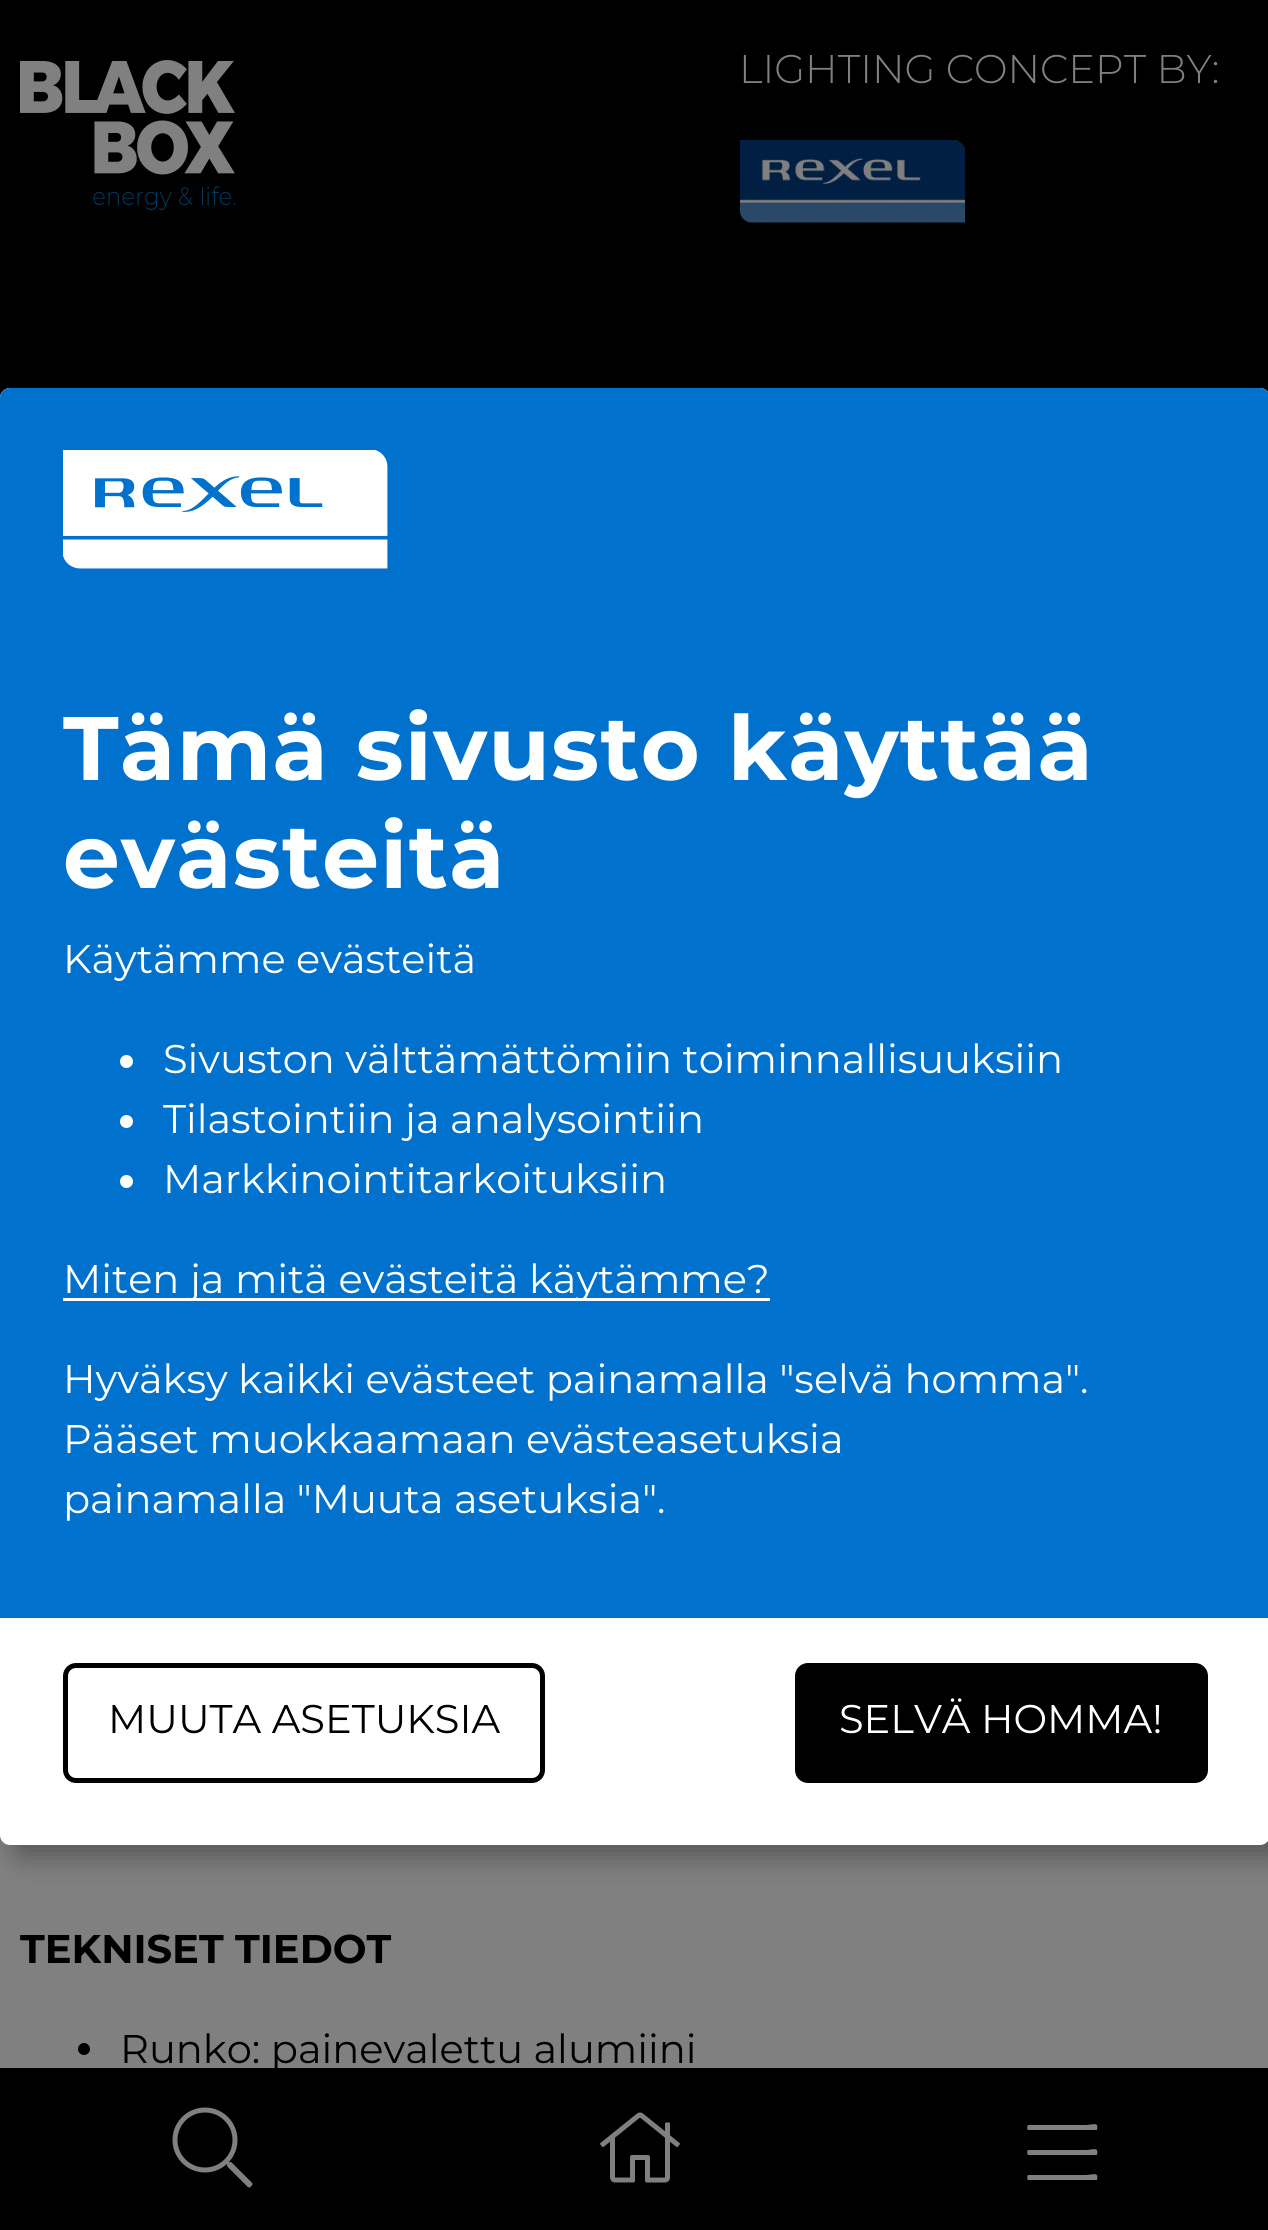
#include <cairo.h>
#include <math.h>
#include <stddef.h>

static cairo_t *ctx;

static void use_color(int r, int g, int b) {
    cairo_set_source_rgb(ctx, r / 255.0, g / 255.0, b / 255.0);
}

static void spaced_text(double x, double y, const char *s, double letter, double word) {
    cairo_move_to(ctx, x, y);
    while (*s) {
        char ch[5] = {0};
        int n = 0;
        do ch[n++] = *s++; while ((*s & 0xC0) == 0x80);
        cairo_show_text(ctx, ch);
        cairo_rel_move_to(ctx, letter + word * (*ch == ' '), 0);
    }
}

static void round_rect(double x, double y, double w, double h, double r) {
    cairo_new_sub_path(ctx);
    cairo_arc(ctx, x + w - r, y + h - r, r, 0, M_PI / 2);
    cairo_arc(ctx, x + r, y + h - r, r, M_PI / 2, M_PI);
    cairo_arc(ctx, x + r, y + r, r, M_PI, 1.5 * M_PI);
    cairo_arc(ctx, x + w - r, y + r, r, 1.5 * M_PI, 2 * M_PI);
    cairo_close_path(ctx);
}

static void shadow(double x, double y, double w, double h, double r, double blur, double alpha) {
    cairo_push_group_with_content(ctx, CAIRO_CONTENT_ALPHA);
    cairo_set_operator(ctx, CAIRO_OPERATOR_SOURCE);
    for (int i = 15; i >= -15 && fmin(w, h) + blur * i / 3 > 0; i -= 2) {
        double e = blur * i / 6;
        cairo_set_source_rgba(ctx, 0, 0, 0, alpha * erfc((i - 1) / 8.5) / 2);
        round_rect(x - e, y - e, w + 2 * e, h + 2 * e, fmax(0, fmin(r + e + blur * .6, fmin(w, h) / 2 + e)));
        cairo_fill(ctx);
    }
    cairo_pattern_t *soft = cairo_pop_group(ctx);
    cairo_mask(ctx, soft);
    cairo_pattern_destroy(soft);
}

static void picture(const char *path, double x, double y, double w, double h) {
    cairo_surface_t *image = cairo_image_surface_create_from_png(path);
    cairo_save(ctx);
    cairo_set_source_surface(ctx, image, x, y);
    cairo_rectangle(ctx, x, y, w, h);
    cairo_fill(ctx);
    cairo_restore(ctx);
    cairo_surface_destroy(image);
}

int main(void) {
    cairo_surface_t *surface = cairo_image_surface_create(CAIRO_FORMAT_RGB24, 1268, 2230);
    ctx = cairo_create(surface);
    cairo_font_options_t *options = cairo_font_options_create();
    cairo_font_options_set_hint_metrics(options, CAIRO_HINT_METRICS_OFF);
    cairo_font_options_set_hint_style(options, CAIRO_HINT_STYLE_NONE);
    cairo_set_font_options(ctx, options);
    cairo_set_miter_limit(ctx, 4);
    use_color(128, 128, 128);
    cairo_paint(ctx);
    use_color(0, 0, 0);
    cairo_rectangle(ctx, 0, 0, 1268, 398);
    cairo_fill(ctx);
    picture("img1.png", 20, 60, 215, 150);
    cairo_select_font_face(ctx, "Montserrat Light", CAIRO_FONT_SLANT_NORMAL, CAIRO_FONT_WEIGHT_NORMAL);
    cairo_set_font_size(ctx, 40);
    use_color(128, 128, 128);
    cairo_move_to(ctx, 739, 83);
    cairo_show_text(ctx, "LIGHTING CONCEPT BY:");
    picture("img2.png", 740, 140, 225, 83);
    use_color(0, 0, 0);
    cairo_rectangle(ctx, 0, 2068, 1268, 162);
    cairo_fill(ctx);
    picture("img3.png", 172, 2107, 81, 81);
    picture("img4.png", 600, 2112, 80, 71);
    use_color(128, 128, 128);
    cairo_new_path(ctx);
    cairo_move_to(ctx, 1097, 2130);
    cairo_line_to(ctx, 1028, 2130);
    cairo_curve_to(ctx, 1027, 2130, 1027, 2125, 1028, 2125);
    cairo_line_to(ctx, 1085, 2125);
    cairo_curve_to(ctx, 1093, 2125, 1099, 2121, 1097, 2130);
    cairo_close_path(ctx);
    cairo_move_to(ctx, 1097, 2155);
    cairo_line_to(ctx, 1028, 2155);
    cairo_curve_to(ctx, 1027, 2155, 1027, 2150, 1028, 2150);
    cairo_line_to(ctx, 1085, 2150);
    cairo_curve_to(ctx, 1093, 2150, 1099, 2146, 1097, 2155);
    cairo_close_path(ctx);
    cairo_move_to(ctx, 1097, 2180);
    cairo_line_to(ctx, 1028, 2180);
    cairo_curve_to(ctx, 1027, 2180, 1027, 2175, 1028, 2175);
    cairo_line_to(ctx, 1085, 2175);
    cairo_curve_to(ctx, 1093, 2175, 1099, 2171, 1097, 2180);
    cairo_close_path(ctx);
    cairo_fill(ctx);
    use_color(0, 0, 0);
    shadow(13, 400, 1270, 1458, 10, 12.5, 0.3);
    use_color(255, 255, 255);
    round_rect(0, 388, 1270, 1457, 10);
    cairo_fill(ctx);
    use_color(0, 114, 206);
    cairo_new_path(ctx);
    cairo_move_to(ctx, 10, 388);
    cairo_line_to(ctx, 1260, 388);
    cairo_curve_to(ctx, 1265.5, 388, 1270, 392.5, 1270, 398);
    cairo_line_to(ctx, 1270, 1618);
    cairo_line_to(ctx, 0, 1618);
    cairo_line_to(ctx, 0, 398);
    cairo_curve_to(ctx, 0, 392.5, 4.5, 388, 10, 388);
    cairo_close_path(ctx);
    cairo_fill(ctx);
    picture("img5.png", 63, 450, 325, 119);
    cairo_select_font_face(ctx, "Montserrat", CAIRO_FONT_SLANT_NORMAL, CAIRO_FONT_WEIGHT_BOLD);
    cairo_set_font_size(ctx, 90);
    use_color(255, 255, 255);
    spaced_text(63, 780, "Tämä sivusto käyttää", 1.25, 0);
    spaced_text(63, 888, "evästeitä", 1.25, 0);
    cairo_select_font_face(ctx, "Montserrat", CAIRO_FONT_SLANT_NORMAL, CAIRO_FONT_WEIGHT_NORMAL);
    cairo_set_font_size(ctx, 40);
    cairo_move_to(ctx, 63, 973);
    cairo_show_text(ctx, "Käytämme evästeitä");
    cairo_new_path(ctx);
    cairo_arc(ctx, 126.5, 1061.5, 6.5, 0, 2 * M_PI);
    cairo_fill(ctx);
    cairo_move_to(ctx, 163, 1073);
    cairo_show_text(ctx, "Sivuston välttämättömiin toiminnallisuuksiin");
    cairo_new_path(ctx);
    cairo_arc(ctx, 126.5, 1121.5, 6.5, 0, 2 * M_PI);
    cairo_fill(ctx);
    cairo_move_to(ctx, 163, 1133);
    cairo_show_text(ctx, "Tilastointiin ja analysointiin");
    cairo_new_path(ctx);
    cairo_arc(ctx, 126.5, 1181.5, 6.5, 0, 2 * M_PI);
    cairo_fill(ctx);
    cairo_move_to(ctx, 163, 1193);
    cairo_show_text(ctx, "Markkinointitarkoituksiin");
    cairo_rectangle(ctx, 63, 1298, 707, 3);
    cairo_fill(ctx);
    cairo_move_to(ctx, 63, 1293);
    cairo_show_text(ctx, "Miten ja mitä evästeitä käytämme?");
    cairo_move_to(ctx, 63, 1393);
    cairo_show_text(ctx, "Hyväksy kaikki evästeet painamalla \"selvä homma\".");
    cairo_move_to(ctx, 63, 1453);
    cairo_show_text(ctx, "Pääset muokkaamaan evästeasetuksia");
    cairo_move_to(ctx, 63, 1513);
    cairo_show_text(ctx, "painamalla \"Muuta asetuksia\".");
    round_rect(65.5, 1665.5, 477, 115, 10.5);
    use_color(0, 0, 0);
    cairo_set_line_width(ctx, 5);
    cairo_stroke(ctx);
    cairo_move_to(ctx, 108, 1733);
    cairo_show_text(ctx, "MUUTA ASETUKSIA");
    round_rect(797.5, 1665.5, 408, 115, 10.5);
    cairo_fill_preserve(ctx);
    cairo_stroke(ctx);
    use_color(255, 255, 255);
    cairo_move_to(ctx, 839, 1733);
    cairo_show_text(ctx, "SELVÄ HOMMA!");
    cairo_select_font_face(ctx, "Montserrat", CAIRO_FONT_SLANT_NORMAL, CAIRO_FONT_WEIGHT_BOLD);
    use_color(0, 0, 0);
    cairo_move_to(ctx, 20, 1963);
    cairo_show_text(ctx, "TEKNISET TIEDOT");
    cairo_new_path(ctx);
    cairo_arc(ctx, 84, 2049, 6, 0, 2 * M_PI);
    cairo_fill(ctx);
    cairo_select_font_face(ctx, "Montserrat", CAIRO_FONT_SLANT_NORMAL, CAIRO_FONT_WEIGHT_NORMAL);
    cairo_move_to(ctx, 120, 2063);
    cairo_show_text(ctx, "Runko: painevalettu alumiini");
    cairo_surface_write_to_png(surface, "result.png");
    cairo_font_options_destroy(options);
    cairo_destroy(ctx);
    cairo_surface_destroy(surface);
    return 0;
}
